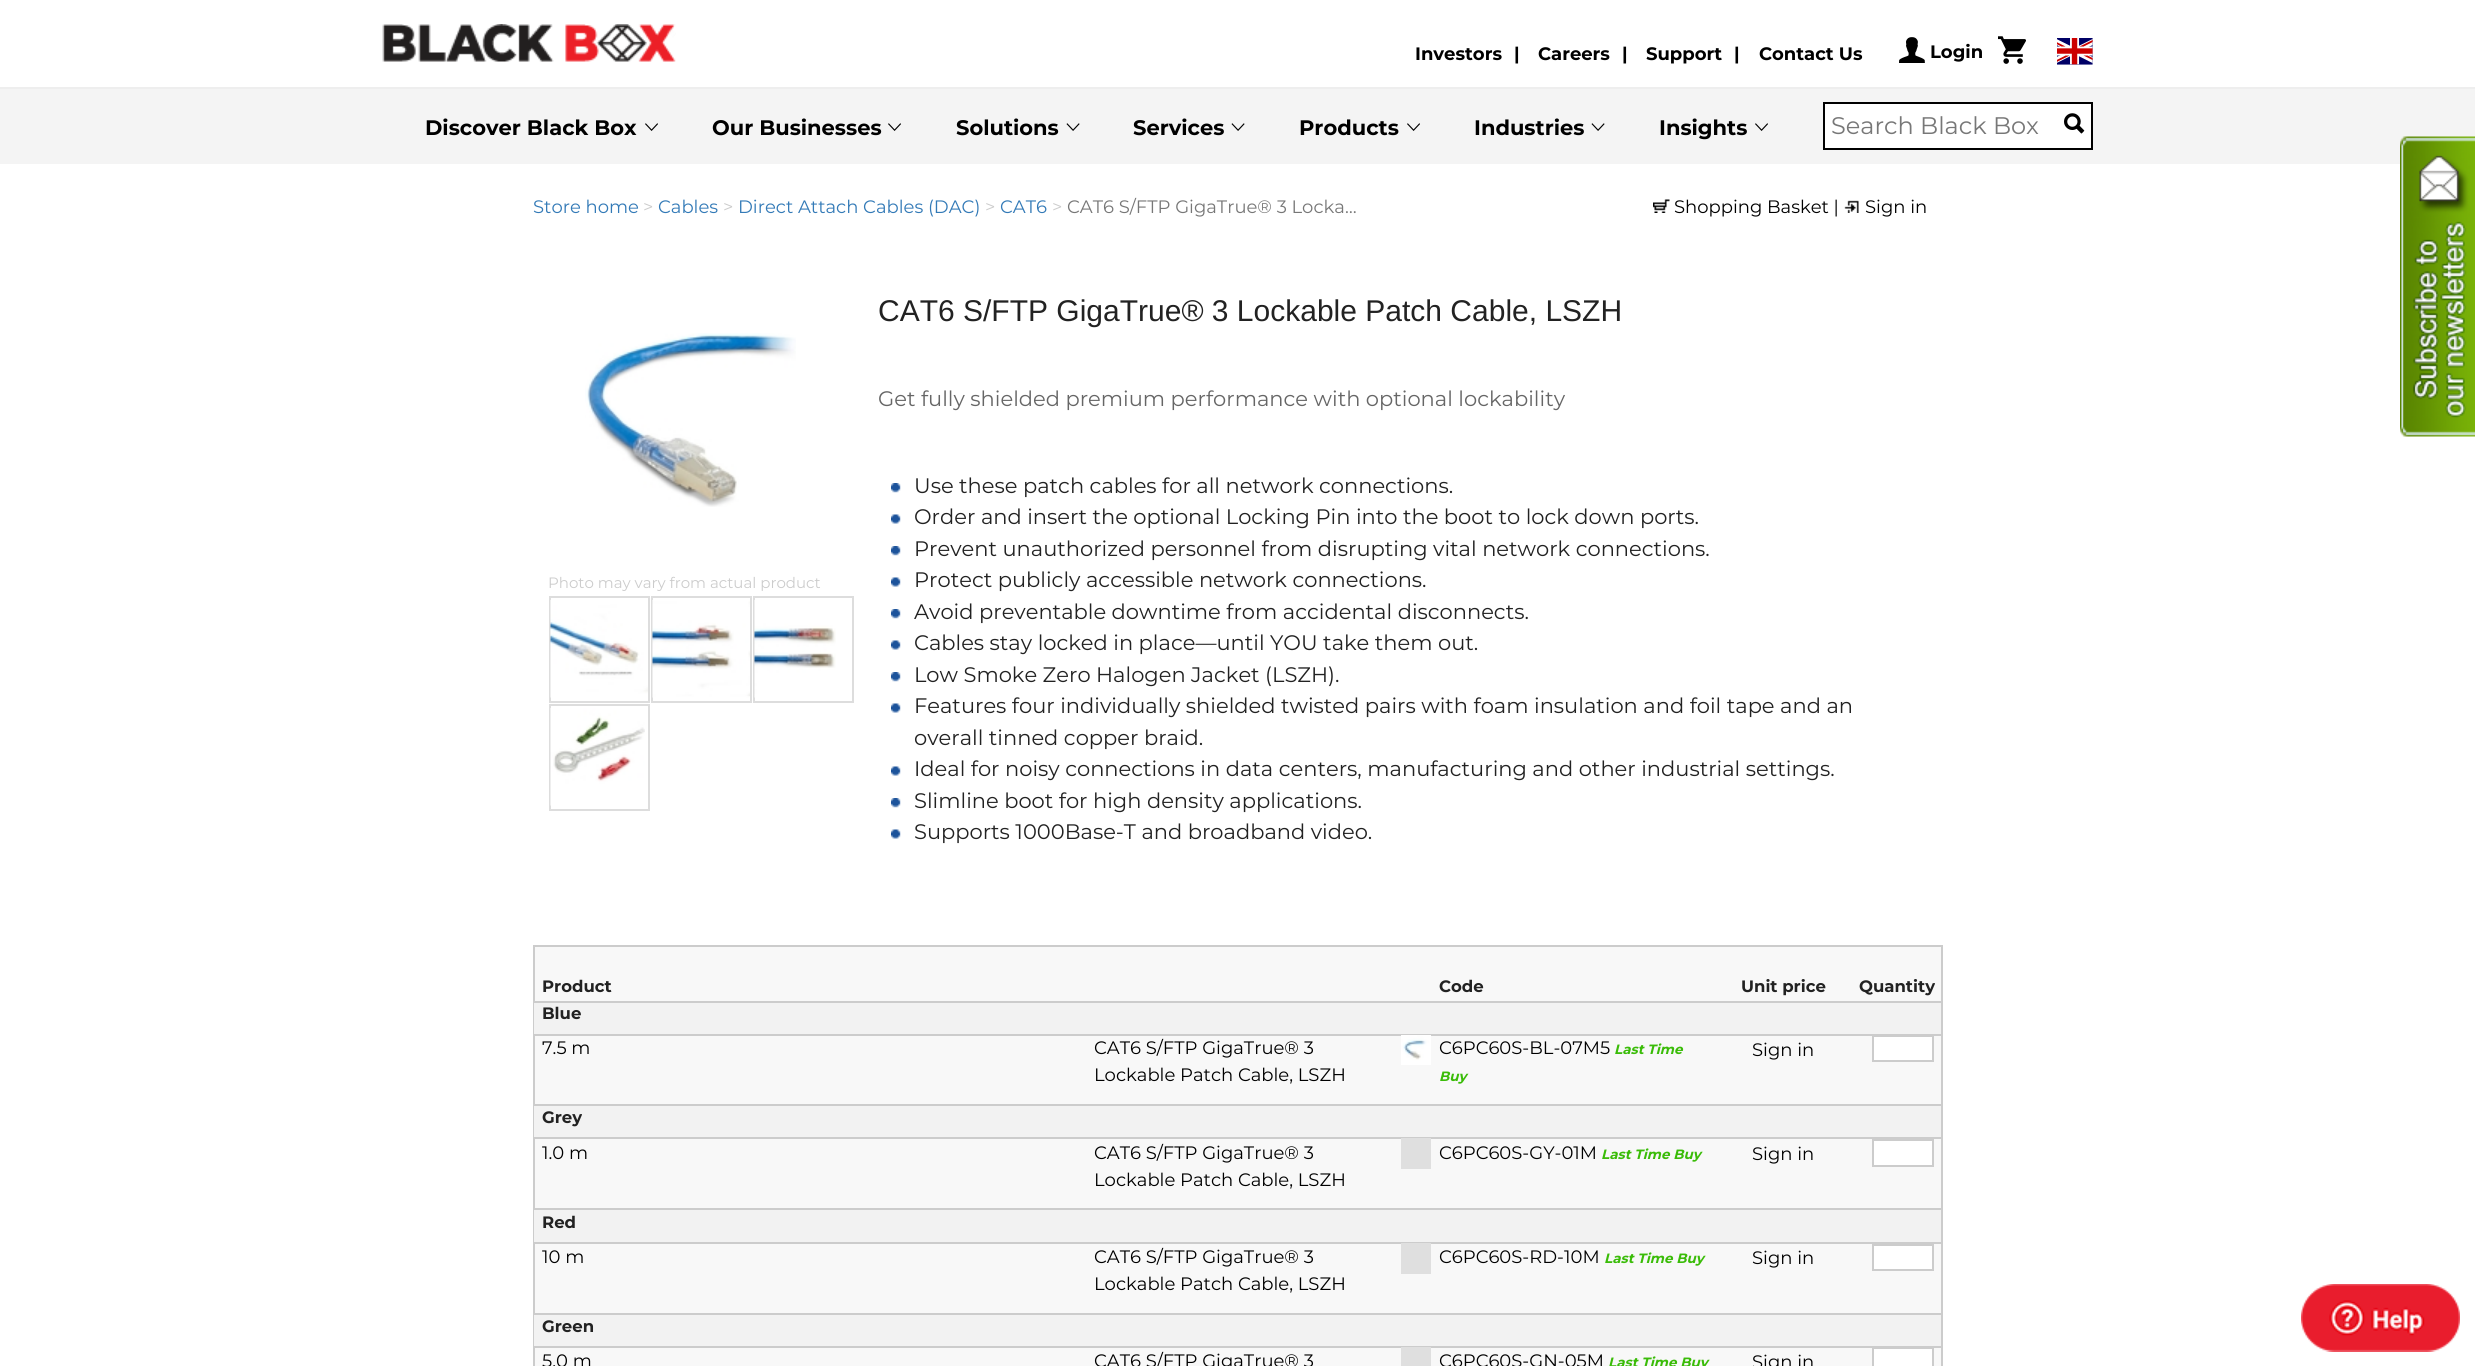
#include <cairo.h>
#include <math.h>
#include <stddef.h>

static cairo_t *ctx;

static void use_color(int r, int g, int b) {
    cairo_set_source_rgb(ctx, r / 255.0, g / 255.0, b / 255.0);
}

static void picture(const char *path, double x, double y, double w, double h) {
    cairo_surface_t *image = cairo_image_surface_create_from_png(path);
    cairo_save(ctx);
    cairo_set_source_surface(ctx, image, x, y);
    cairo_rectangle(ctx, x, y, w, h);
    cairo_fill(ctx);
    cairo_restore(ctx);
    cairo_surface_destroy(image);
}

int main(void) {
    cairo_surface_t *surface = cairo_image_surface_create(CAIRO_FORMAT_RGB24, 2475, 1366);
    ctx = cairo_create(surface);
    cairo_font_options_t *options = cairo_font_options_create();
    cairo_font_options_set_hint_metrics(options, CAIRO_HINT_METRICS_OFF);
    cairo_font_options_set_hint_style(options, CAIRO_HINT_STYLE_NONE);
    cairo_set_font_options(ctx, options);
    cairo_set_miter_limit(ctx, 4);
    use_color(255, 255, 255);
    cairo_paint(ctx);
    use_color(238, 238, 238);
    cairo_rectangle(ctx, 0, 87, 2475, 2);
    cairo_fill(ctx);
    picture("img1.png", 382, 24, 294, 38);
    cairo_select_font_face(ctx, "Montserrat", CAIRO_FONT_SLANT_NORMAL, CAIRO_FONT_WEIGHT_BOLD);
    cairo_set_font_size(ctx, 18);
    use_color(0, 0, 0);
    cairo_move_to(ctx, 1415, 60);
    cairo_show_text(ctx, "Investors");
    cairo_move_to(ctx, 1514, 60);
    cairo_show_text(ctx, "|");
    cairo_move_to(ctx, 1538, 60);
    cairo_show_text(ctx, "Careers");
    cairo_move_to(ctx, 1622, 60);
    cairo_show_text(ctx, "|");
    cairo_move_to(ctx, 1646, 60);
    cairo_show_text(ctx, "Support");
    cairo_move_to(ctx, 1734, 60);
    cairo_show_text(ctx, "|");
    cairo_move_to(ctx, 1759, 60);
    cairo_show_text(ctx, "Contact Us");
    picture("img2.png", 1899, 37, 26, 26);
    cairo_move_to(ctx, 1930, 58);
    cairo_show_text(ctx, "Login");
    picture("img3.png", 1998, 36, 28, 28);
    picture("img4.png", 2057, 38, 36, 27);
    use_color(244, 244, 244);
    cairo_rectangle(ctx, 0, 89, 2475, 75);
    cairo_fill(ctx);
    cairo_set_font_size(ctx, 21);
    use_color(0, 0, 0);
    cairo_move_to(ctx, 425, 135);
    cairo_show_text(ctx, "Discover Black Box");
    picture("img5.png", 645, 123, 13, 8);
    cairo_move_to(ctx, 712, 135);
    cairo_show_text(ctx, "Our Businesses");
    picture("img5.png", 888, 123, 13, 8);
    cairo_move_to(ctx, 956, 135);
    cairo_show_text(ctx, "Solutions");
    picture("img6.png", 1066, 123, 14, 8);
    cairo_move_to(ctx, 1133, 135);
    cairo_show_text(ctx, "Services");
    picture("img6.png", 1231, 123, 14, 8);
    cairo_move_to(ctx, 1299, 135);
    cairo_show_text(ctx, "Products");
    picture("img5.png", 1407, 123, 13, 8);
    cairo_move_to(ctx, 1474, 135);
    cairo_show_text(ctx, "Industries");
    picture("img6.png", 1591, 123, 14, 8);
    cairo_move_to(ctx, 1659, 135);
    cairo_show_text(ctx, "Insights");
    picture("img5.png", 1755, 123, 13, 8);
    use_color(255, 255, 255);
    cairo_rectangle(ctx, 1824, 103, 268, 46);
    cairo_fill_preserve(ctx);
    use_color(0, 0, 0);
    cairo_stroke(ctx);
    cairo_select_font_face(ctx, "Montserrat", CAIRO_FONT_SLANT_NORMAL, CAIRO_FONT_WEIGHT_NORMAL);
    cairo_set_font_size(ctx, 24);
    use_color(119, 119, 119);
    cairo_move_to(ctx, 1831, 134);
    cairo_show_text(ctx, "Search Black Box");
    picture("img7.png", 2064, 113, 21, 21);
    cairo_set_font_size(ctx, 18);
    use_color(51, 122, 183);
    cairo_move_to(ctx, 533, 213);
    cairo_show_text(ctx, "Store home");
    use_color(204, 204, 204);
    cairo_move_to(ctx, 643, 213);
    cairo_show_text(ctx, ">");
    use_color(51, 122, 183);
    cairo_move_to(ctx, 658, 213);
    cairo_show_text(ctx, "Cables");
    use_color(204, 204, 204);
    cairo_move_to(ctx, 723, 213);
    cairo_show_text(ctx, ">");
    use_color(51, 122, 183);
    cairo_move_to(ctx, 738, 213);
    cairo_show_text(ctx, "Direct Attach Cables (DAC)");
    use_color(204, 204, 204);
    cairo_move_to(ctx, 985, 213);
    cairo_show_text(ctx, ">");
    use_color(51, 122, 183);
    cairo_move_to(ctx, 1000, 213);
    cairo_show_text(ctx, "CAT6");
    use_color(204, 204, 204);
    cairo_move_to(ctx, 1052, 213);
    cairo_show_text(ctx, ">");
    use_color(119, 119, 119);
    cairo_move_to(ctx, 1067, 213);
    cairo_show_text(ctx, "CAT6 S/FTP GigaTrue® 3 Locka…");
    picture("img8.png", 1653, 199, 17, 14);
    use_color(0, 0, 0);
    cairo_move_to(ctx, 1674, 213);
    cairo_show_text(ctx, "Shopping Basket |");
    picture("img9.png", 1844, 200, 15, 13);
    cairo_move_to(ctx, 1865, 213);
    cairo_show_text(ctx, "Sign in");
    picture("img10.png", 585, 333, 211, 174);
    cairo_set_font_size(ctx, 15);
    use_color(204, 204, 204);
    cairo_move_to(ctx, 548, 588);
    cairo_show_text(ctx, "Photo may vary from actual product");
    use_color(221, 221, 221);
    cairo_rectangle(ctx, 549, 596, 101, 2);
    cairo_fill(ctx);
    cairo_rectangle(ctx, 648, 596, 2, 106);
    cairo_fill(ctx);
    cairo_rectangle(ctx, 549, 701, 101, 2);
    cairo_fill(ctx);
    cairo_rectangle(ctx, 549, 596, 2, 106);
    cairo_fill(ctx);
    picture("img11.png", 550, 600, 98, 98);
    cairo_rectangle(ctx, 651, 596, 101, 2);
    cairo_fill(ctx);
    cairo_rectangle(ctx, 750, 596, 2, 106);
    cairo_fill(ctx);
    cairo_rectangle(ctx, 651, 701, 101, 2);
    cairo_fill(ctx);
    cairo_rectangle(ctx, 651, 596, 2, 106);
    cairo_fill(ctx);
    picture("img12.png", 652, 600, 98, 98);
    cairo_rectangle(ctx, 753, 596, 101, 2);
    cairo_fill(ctx);
    cairo_rectangle(ctx, 852, 596, 2, 106);
    cairo_fill(ctx);
    cairo_rectangle(ctx, 753, 701, 101, 2);
    cairo_fill(ctx);
    cairo_rectangle(ctx, 753, 596, 2, 106);
    cairo_fill(ctx);
    picture("img13.png", 754, 600, 82, 98);
    cairo_rectangle(ctx, 549, 704, 101, 2);
    cairo_fill(ctx);
    cairo_rectangle(ctx, 648, 704, 2, 106);
    cairo_fill(ctx);
    cairo_rectangle(ctx, 549, 809, 101, 2);
    cairo_fill(ctx);
    cairo_rectangle(ctx, 549, 704, 2, 106);
    cairo_fill(ctx);
    picture("img14.png", 550, 708, 95, 98);
    cairo_select_font_face(ctx, "Liberation Sans", CAIRO_FONT_SLANT_NORMAL, CAIRO_FONT_WEIGHT_NORMAL);
    cairo_set_font_size(ctx, 30);
    use_color(34, 34, 34);
    cairo_move_to(ctx, 878, 321);
    cairo_show_text(ctx, "CAT6 S/FTP GigaTrue® 3 Lockable Patch Cable, LSZH");
    cairo_select_font_face(ctx, "Montserrat", CAIRO_FONT_SLANT_NORMAL, CAIRO_FONT_WEIGHT_NORMAL);
    cairo_set_font_size(ctx, 21);
    use_color(102, 102, 102);
    cairo_move_to(ctx, 878, 406);
    cairo_show_text(ctx, "Get fully shielded premium performance with optional lockability");
    picture("img15.png", 891, 483, 10, 10);
    use_color(34, 34, 34);
    cairo_move_to(ctx, 914, 493);
    cairo_show_text(ctx, "Use these patch cables for all network connections.");
    picture("img16.png", 891, 514, 10, 10);
    cairo_move_to(ctx, 914, 524);
    cairo_show_text(ctx, "Order and insert the optional Locking Pin into the boot to lock down ports.");
    picture("img15.png", 891, 546, 10, 10);
    cairo_move_to(ctx, 914, 556);
    cairo_show_text(ctx, "Prevent unauthorized personnel from disrupting vital network connections.");
    picture("img16.png", 891, 577, 10, 10);
    cairo_move_to(ctx, 914, 587);
    cairo_show_text(ctx, "Protect publicly accessible network connections.");
    picture("img15.png", 891, 609, 10, 10);
    cairo_move_to(ctx, 914, 619);
    cairo_show_text(ctx, "Avoid preventable downtime from accidental disconnects.");
    picture("img16.png", 891, 640, 10, 10);
    cairo_move_to(ctx, 914, 650);
    cairo_show_text(ctx, "Cables stay locked in place—until YOU take them out.");
    picture("img15.png", 891, 672, 10, 10);
    cairo_move_to(ctx, 914, 682);
    cairo_show_text(ctx, "Low Smoke Zero Halogen Jacket (LSZH).");
    picture("img16.png", 891, 703, 10, 10);
    cairo_move_to(ctx, 914, 713);
    cairo_show_text(ctx, "Features four individually shielded twisted pairs with foam insulation and foil tape and an");
    cairo_move_to(ctx, 914, 745);
    cairo_show_text(ctx, "overall tinned copper braid.");
    picture("img16.png", 891, 766, 10, 10);
    cairo_move_to(ctx, 914, 776);
    cairo_show_text(ctx, "Ideal for noisy connections in data centers, manufacturing and other industrial settings.");
    picture("img15.png", 891, 798, 10, 10);
    cairo_move_to(ctx, 914, 808);
    cairo_show_text(ctx, "Slimline boot for high density applications.");
    picture("img16.png", 891, 829, 10, 10);
    cairo_move_to(ctx, 914, 839);
    cairo_show_text(ctx, "Supports 1000Base-T and broadband video.");
    use_color(248, 248, 248);
    cairo_rectangle(ctx, 534, 946, 1408, 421);
    cairo_fill_preserve(ctx);
    use_color(204, 204, 204);
    cairo_stroke(ctx);
    cairo_select_font_face(ctx, "Montserrat", CAIRO_FONT_SLANT_NORMAL, CAIRO_FONT_WEIGHT_BOLD);
    cairo_set_font_size(ctx, 16.5);
    use_color(34, 34, 34);
    cairo_move_to(ctx, 542, 992);
    cairo_show_text(ctx, "Product");
    cairo_move_to(ctx, 1439, 992);
    cairo_show_text(ctx, "Code");
    cairo_move_to(ctx, 1741, 992);
    cairo_show_text(ctx, "Unit price");
    cairo_move_to(ctx, 1859, 992);
    cairo_show_text(ctx, "Quantity");
    use_color(242, 242, 242);
    cairo_rectangle(ctx, 534, 1003, 1407, 31);
    cairo_fill(ctx);
    use_color(204, 204, 204);
    cairo_rectangle(ctx, 534, 1001, 1407, 2);
    cairo_fill(ctx);
    cairo_rectangle(ctx, 534, 1034, 1407, 2);
    cairo_fill(ctx);
    use_color(34, 34, 34);
    cairo_move_to(ctx, 542, 1019);
    cairo_show_text(ctx, "Blue");
    cairo_select_font_face(ctx, "Montserrat", CAIRO_FONT_SLANT_NORMAL, CAIRO_FONT_WEIGHT_NORMAL);
    cairo_set_font_size(ctx, 18);
    use_color(0, 0, 0);
    cairo_move_to(ctx, 542, 1054);
    cairo_show_text(ctx, "7.5 m");
    cairo_move_to(ctx, 1094, 1054);
    cairo_show_text(ctx, "CAT6 S/FTP GigaTrue® 3");
    cairo_move_to(ctx, 1094, 1081);
    cairo_show_text(ctx, "Lockable Patch Cable, LSZH");
    picture("img17.png", 1401, 1035, 30, 30);
    cairo_move_to(ctx, 1439, 1054);
    cairo_show_text(ctx, "C6PC60S-BL-07M5");
    cairo_select_font_face(ctx, "Montserrat", CAIRO_FONT_SLANT_ITALIC, CAIRO_FONT_WEIGHT_BOLD);
    cairo_set_font_size(ctx, 13.5);
    use_color(58, 188, 8);
    cairo_move_to(ctx, 1614, 1054);
    cairo_show_text(ctx, "Last Time");
    cairo_move_to(ctx, 1439, 1081);
    cairo_show_text(ctx, "Buy");
    cairo_select_font_face(ctx, "Montserrat", CAIRO_FONT_SLANT_NORMAL, CAIRO_FONT_WEIGHT_NORMAL);
    cairo_set_font_size(ctx, 18);
    use_color(0, 0, 0);
    cairo_move_to(ctx, 1752, 1056);
    cairo_show_text(ctx, "Sign in");
    use_color(255, 255, 255);
    cairo_rectangle(ctx, 1873, 1036, 60, 25);
    cairo_fill_preserve(ctx);
    use_color(204, 204, 204);
    cairo_stroke(ctx);
    use_color(242, 242, 242);
    cairo_rectangle(ctx, 534, 1106, 1407, 31);
    cairo_fill(ctx);
    use_color(204, 204, 204);
    cairo_rectangle(ctx, 534, 1104, 1407, 2);
    cairo_fill(ctx);
    cairo_rectangle(ctx, 534, 1137, 1407, 2);
    cairo_fill(ctx);
    cairo_select_font_face(ctx, "Montserrat", CAIRO_FONT_SLANT_NORMAL, CAIRO_FONT_WEIGHT_BOLD);
    cairo_set_font_size(ctx, 16.5);
    use_color(34, 34, 34);
    cairo_move_to(ctx, 542, 1123);
    cairo_show_text(ctx, "Grey");
    cairo_select_font_face(ctx, "Montserrat", CAIRO_FONT_SLANT_NORMAL, CAIRO_FONT_WEIGHT_NORMAL);
    cairo_set_font_size(ctx, 18);
    use_color(0, 0, 0);
    cairo_move_to(ctx, 542, 1159);
    cairo_show_text(ctx, "1.0 m");
    cairo_move_to(ctx, 1094, 1159);
    cairo_show_text(ctx, "CAT6 S/FTP GigaTrue® 3");
    cairo_move_to(ctx, 1094, 1186);
    cairo_show_text(ctx, "Lockable Patch Cable, LSZH");
    use_color(223, 223, 223);
    cairo_rectangle(ctx, 1401, 1138, 30, 31);
    cairo_fill(ctx);
    use_color(0, 0, 0);
    cairo_move_to(ctx, 1439, 1159);
    cairo_show_text(ctx, "C6PC60S-GY-01M");
    cairo_select_font_face(ctx, "Montserrat", CAIRO_FONT_SLANT_ITALIC, CAIRO_FONT_WEIGHT_BOLD);
    cairo_set_font_size(ctx, 13.5);
    use_color(58, 188, 8);
    cairo_move_to(ctx, 1601, 1159);
    cairo_show_text(ctx, "Last Time Buy");
    cairo_select_font_face(ctx, "Montserrat", CAIRO_FONT_SLANT_NORMAL, CAIRO_FONT_WEIGHT_NORMAL);
    cairo_set_font_size(ctx, 18);
    use_color(0, 0, 0);
    cairo_move_to(ctx, 1752, 1160);
    cairo_show_text(ctx, "Sign in");
    use_color(255, 255, 255);
    cairo_rectangle(ctx, 1873, 1140, 60, 26);
    cairo_fill_preserve(ctx);
    use_color(204, 204, 204);
    cairo_stroke(ctx);
    use_color(242, 242, 242);
    cairo_rectangle(ctx, 534, 1210, 1407, 32);
    cairo_fill(ctx);
    use_color(204, 204, 204);
    cairo_rectangle(ctx, 534, 1208, 1407, 2);
    cairo_fill(ctx);
    cairo_rectangle(ctx, 534, 1242, 1407, 2);
    cairo_fill(ctx);
    cairo_select_font_face(ctx, "Montserrat", CAIRO_FONT_SLANT_NORMAL, CAIRO_FONT_WEIGHT_BOLD);
    cairo_set_font_size(ctx, 16.5);
    use_color(34, 34, 34);
    cairo_move_to(ctx, 542, 1228);
    cairo_show_text(ctx, "Red");
    cairo_select_font_face(ctx, "Montserrat", CAIRO_FONT_SLANT_NORMAL, CAIRO_FONT_WEIGHT_NORMAL);
    cairo_set_font_size(ctx, 18);
    use_color(0, 0, 0);
    cairo_move_to(ctx, 542, 1263);
    cairo_show_text(ctx, "10 m");
    cairo_move_to(ctx, 1094, 1263);
    cairo_show_text(ctx, "CAT6 S/FTP GigaTrue® 3");
    cairo_move_to(ctx, 1094, 1290);
    cairo_show_text(ctx, "Lockable Patch Cable, LSZH");
    use_color(223, 223, 223);
    cairo_rectangle(ctx, 1401, 1243, 30, 31);
    cairo_fill(ctx);
    use_color(0, 0, 0);
    cairo_move_to(ctx, 1439, 1263);
    cairo_show_text(ctx, "C6PC60S-RD-10M");
    cairo_select_font_face(ctx, "Montserrat", CAIRO_FONT_SLANT_ITALIC, CAIRO_FONT_WEIGHT_BOLD);
    cairo_set_font_size(ctx, 13.5);
    use_color(58, 188, 8);
    cairo_move_to(ctx, 1604, 1263);
    cairo_show_text(ctx, "Last Time Buy");
    cairo_select_font_face(ctx, "Montserrat", CAIRO_FONT_SLANT_NORMAL, CAIRO_FONT_WEIGHT_NORMAL);
    cairo_set_font_size(ctx, 18);
    use_color(0, 0, 0);
    cairo_move_to(ctx, 1752, 1264);
    cairo_show_text(ctx, "Sign in");
    use_color(255, 255, 255);
    cairo_rectangle(ctx, 1873, 1245, 60, 25);
    cairo_fill_preserve(ctx);
    use_color(204, 204, 204);
    cairo_stroke(ctx);
    use_color(242, 242, 242);
    cairo_rectangle(ctx, 534, 1315, 1407, 31);
    cairo_fill(ctx);
    use_color(204, 204, 204);
    cairo_rectangle(ctx, 534, 1313, 1407, 2);
    cairo_fill(ctx);
    cairo_rectangle(ctx, 534, 1346, 1407, 2);
    cairo_fill(ctx);
    cairo_select_font_face(ctx, "Montserrat", CAIRO_FONT_SLANT_NORMAL, CAIRO_FONT_WEIGHT_BOLD);
    cairo_set_font_size(ctx, 16.5);
    use_color(34, 34, 34);
    cairo_move_to(ctx, 542, 1332);
    cairo_show_text(ctx, "Green");
    cairo_select_font_face(ctx, "Montserrat", CAIRO_FONT_SLANT_NORMAL, CAIRO_FONT_WEIGHT_NORMAL);
    cairo_set_font_size(ctx, 18);
    use_color(0, 0, 0);
    cairo_move_to(ctx, 542, 1367);
    cairo_show_text(ctx, "5.0 m");
    cairo_move_to(ctx, 1094, 1367);
    cairo_show_text(ctx, "CAT6 S/FTP GigaTrue® 3");
    use_color(223, 223, 223);
    cairo_rectangle(ctx, 1401, 1347, 30, 19);
    cairo_fill(ctx);
    use_color(0, 0, 0);
    cairo_move_to(ctx, 1439, 1367);
    cairo_show_text(ctx, "C6PC60S-GN-05M");
    cairo_select_font_face(ctx, "Montserrat", CAIRO_FONT_SLANT_ITALIC, CAIRO_FONT_WEIGHT_BOLD);
    cairo_set_font_size(ctx, 13.5);
    use_color(58, 188, 8);
    cairo_move_to(ctx, 1608, 1367);
    cairo_show_text(ctx, "Last Time Buy");
    cairo_select_font_face(ctx, "Montserrat", CAIRO_FONT_SLANT_NORMAL, CAIRO_FONT_WEIGHT_NORMAL);
    cairo_set_font_size(ctx, 18);
    use_color(0, 0, 0);
    cairo_move_to(ctx, 1752, 1368);
    cairo_show_text(ctx, "Sign in");
    use_color(255, 255, 255);
    cairo_rectangle(ctx, 1873, 1348, 60, 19);
    cairo_fill_preserve(ctx);
    use_color(204, 204, 204);
    cairo_stroke(ctx);
    picture("img18.png", 2400, 136, 75, 301);
    picture("img19.png", 2301, 1284, 159, 68);
    cairo_surface_write_to_png(surface, "result.png");
    cairo_font_options_destroy(options);
    cairo_destroy(ctx);
    cairo_surface_destroy(surface);
    return 0;
}
